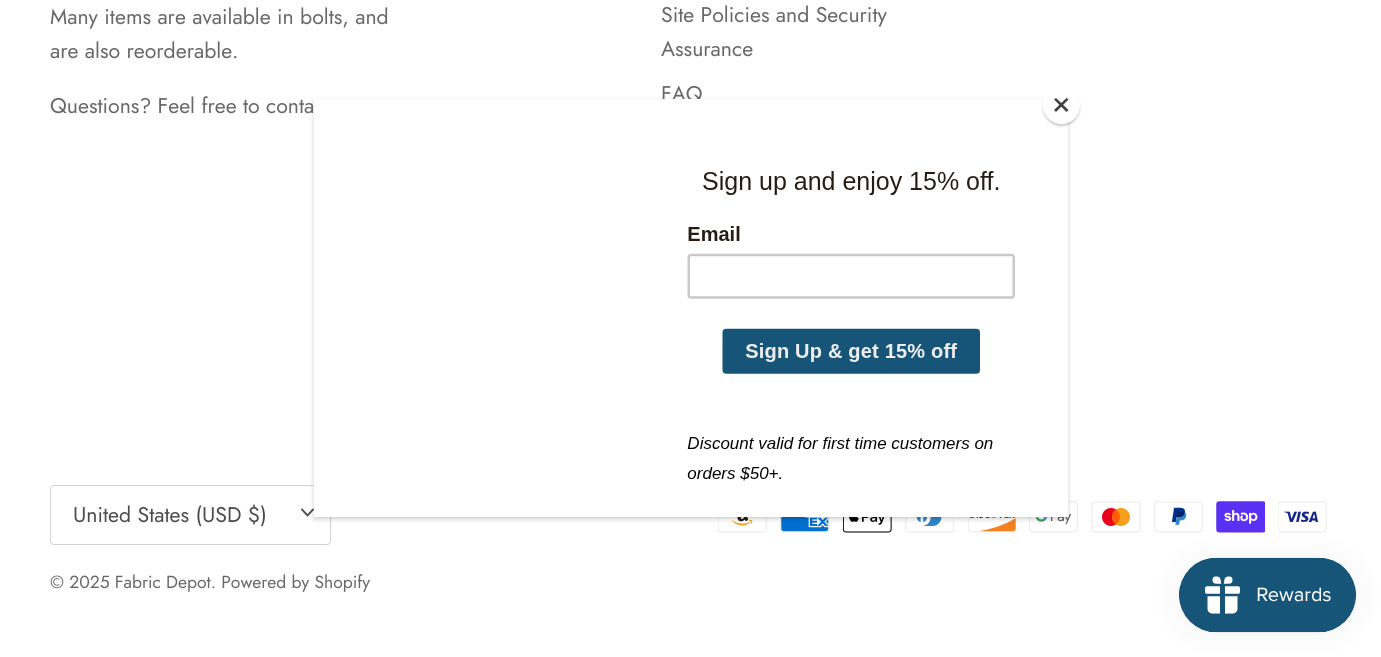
#include <cairo.h>
#include <math.h>
#include <stddef.h>

static cairo_t *ctx;

static void use_color(int r, int g, int b) {
    cairo_set_source_rgb(ctx, r / 255.0, g / 255.0, b / 255.0);
}

static void round_rect(double x, double y, double w, double h, double r) {
    cairo_new_sub_path(ctx);
    cairo_arc(ctx, x + w - r, y + h - r, r, 0, M_PI / 2);
    cairo_arc(ctx, x + r, y + h - r, r, M_PI / 2, M_PI);
    cairo_arc(ctx, x + r, y + r, r, M_PI, 1.5 * M_PI);
    cairo_arc(ctx, x + w - r, y + r, r, 1.5 * M_PI, 2 * M_PI);
    cairo_close_path(ctx);
}

static void shadow(double x, double y, double w, double h, double r, double blur, double alpha) {
    cairo_push_group_with_content(ctx, CAIRO_CONTENT_ALPHA);
    cairo_set_operator(ctx, CAIRO_OPERATOR_SOURCE);
    for (int i = 15; i >= -15 && fmin(w, h) + blur * i / 3 > 0; i -= 2) {
        double e = blur * i / 6;
        cairo_set_source_rgba(ctx, 0, 0, 0, alpha * erfc((i - 1) / 8.5) / 2);
        round_rect(x - e, y - e, w + 2 * e, h + 2 * e, fmax(0, fmin(r + e + blur * .6, fmin(w, h) / 2 + e)));
        cairo_fill(ctx);
    }
    cairo_pattern_t *soft = cairo_pop_group(ctx);
    cairo_mask(ctx, soft);
    cairo_pattern_destroy(soft);
}

static void picture(const char *path, double x, double y, double w, double h) {
    cairo_surface_t *image = cairo_image_surface_create_from_png(path);
    cairo_save(ctx);
    cairo_set_source_surface(ctx, image, x, y);
    cairo_rectangle(ctx, x, y, w, h);
    cairo_fill(ctx);
    cairo_restore(ctx);
    cairo_surface_destroy(image);
}

int main(void) {
    cairo_surface_t *surface = cairo_image_surface_create(CAIRO_FORMAT_RGB24, 1381, 657);
    ctx = cairo_create(surface);
    cairo_font_options_t *options = cairo_font_options_create();
    cairo_font_options_set_hint_metrics(options, CAIRO_HINT_METRICS_OFF);
    cairo_font_options_set_hint_style(options, CAIRO_HINT_STYLE_NONE);
    cairo_set_font_options(ctx, options);
    cairo_set_miter_limit(ctx, 4);
    use_color(255, 255, 255);
    cairo_paint(ctx);
    cairo_select_font_face(ctx, "Jost", CAIRO_FONT_SLANT_NORMAL, CAIRO_FONT_WEIGHT_NORMAL);
    cairo_set_font_size(ctx, 21.25);
    use_color(103, 104, 105);
    cairo_move_to(ctx, 50, 24);
    cairo_show_text(ctx, "Many items are available in bolts, and");
    cairo_move_to(ctx, 50, 58);
    cairo_show_text(ctx, "are also reorderable.");
    cairo_move_to(ctx, 50, 113);
    cairo_show_text(ctx, "Questions? Feel free to conta");
    cairo_move_to(ctx, 661, 22);
    cairo_show_text(ctx, "Site Policies and Security");
    cairo_move_to(ctx, 661, 56);
    cairo_show_text(ctx, "Assurance");
    cairo_move_to(ctx, 661, 101);
    cairo_show_text(ctx, "FAQ");
    round_rect(50.5, 485.5, 280, 59, 3.5);
    use_color(210, 210, 210);
    cairo_set_line_width(ctx, 1);
    cairo_stroke(ctx);
    use_color(76, 76, 75);
    cairo_move_to(ctx, 73, 522);
    cairo_show_text(ctx, "United States (USD $)");
    cairo_new_path(ctx);
    cairo_move_to(ctx, 302, 509.5);
    cairo_line_to(ctx, 307.5, 515.5);
    cairo_line_to(ctx, 313, 509.5);
    cairo_set_line_width(ctx, 1.9);
    cairo_set_line_cap(ctx, CAIRO_LINE_CAP_ROUND);
    cairo_set_line_join(ctx, CAIRO_LINE_JOIN_ROUND);
    cairo_stroke(ctx);
    cairo_set_font_size(ctx, 17.5);
    use_color(103, 104, 105);
    cairo_move_to(ctx, 50, 588);
    cairo_show_text(ctx, "© 2025 Fabric Depot. Powered by Shopify");
    picture("img1.png", 718, 517, 49, 16);
    picture("img2.png", 780, 517, 50, 16);
    picture("img3.png", 843, 517, 49, 16);
    picture("img4.png", 905, 517, 49, 16);
    picture("img5.png", 968, 517, 48, 16);
    picture("img6.png", 1029, 501, 49, 32);
    picture("img7.png", 1091, 501, 50, 32);
    picture("img8.png", 1154, 501, 49, 32);
    picture("img9.png", 1216, 501, 49, 32);
    picture("img10.png", 1278, 501, 49, 32);
    use_color(0, 0, 0);
    shadow(314, 101, 754, 418, 0, 2.5, 0.2);
    picture("img11.png", 314, 99, 754, 418);
    shadow(1043, 89, 37, 37, 18.5, 1, 0.2);
    use_color(255, 255, 255);
    round_rect(1043, 86, 37, 38, 18.5);
    cairo_fill(ctx);
    use_color(65, 65, 65);
    cairo_new_path(ctx);
    cairo_move_to(ctx, 1066.5, 98);
    cairo_line_to(ctx, 1068.5, 99.5);
    cairo_line_to(ctx, 1056, 112);
    cairo_line_to(ctx, 1054, 110);
    cairo_close_path(ctx);
    cairo_fill(ctx);
    cairo_new_path(ctx);
    cairo_move_to(ctx, 1054, 99.5);
    cairo_line_to(ctx, 1056, 98);
    cairo_line_to(ctx, 1068.5, 110);
    cairo_line_to(ctx, 1066.5, 112);
    cairo_close_path(ctx);
    cairo_fill(ctx);
    use_color(0, 0, 0);
    shadow(1179, 558, 177, 75, 37.5, 15.5, 0.05);
    picture("img12.png", 1179, 557, 177, 76);
    cairo_surface_write_to_png(surface, "result.png");
    cairo_font_options_destroy(options);
    cairo_destroy(ctx);
    cairo_surface_destroy(surface);
    return 0;
}
